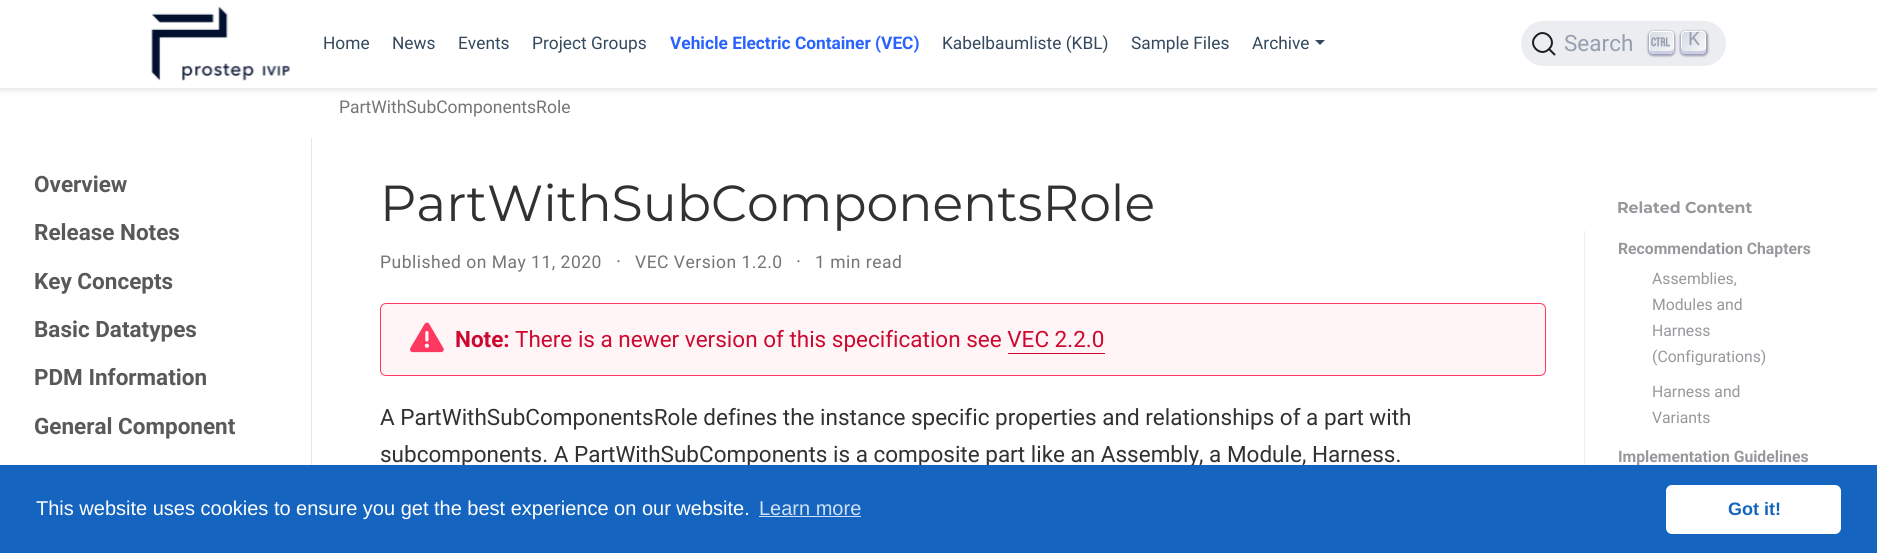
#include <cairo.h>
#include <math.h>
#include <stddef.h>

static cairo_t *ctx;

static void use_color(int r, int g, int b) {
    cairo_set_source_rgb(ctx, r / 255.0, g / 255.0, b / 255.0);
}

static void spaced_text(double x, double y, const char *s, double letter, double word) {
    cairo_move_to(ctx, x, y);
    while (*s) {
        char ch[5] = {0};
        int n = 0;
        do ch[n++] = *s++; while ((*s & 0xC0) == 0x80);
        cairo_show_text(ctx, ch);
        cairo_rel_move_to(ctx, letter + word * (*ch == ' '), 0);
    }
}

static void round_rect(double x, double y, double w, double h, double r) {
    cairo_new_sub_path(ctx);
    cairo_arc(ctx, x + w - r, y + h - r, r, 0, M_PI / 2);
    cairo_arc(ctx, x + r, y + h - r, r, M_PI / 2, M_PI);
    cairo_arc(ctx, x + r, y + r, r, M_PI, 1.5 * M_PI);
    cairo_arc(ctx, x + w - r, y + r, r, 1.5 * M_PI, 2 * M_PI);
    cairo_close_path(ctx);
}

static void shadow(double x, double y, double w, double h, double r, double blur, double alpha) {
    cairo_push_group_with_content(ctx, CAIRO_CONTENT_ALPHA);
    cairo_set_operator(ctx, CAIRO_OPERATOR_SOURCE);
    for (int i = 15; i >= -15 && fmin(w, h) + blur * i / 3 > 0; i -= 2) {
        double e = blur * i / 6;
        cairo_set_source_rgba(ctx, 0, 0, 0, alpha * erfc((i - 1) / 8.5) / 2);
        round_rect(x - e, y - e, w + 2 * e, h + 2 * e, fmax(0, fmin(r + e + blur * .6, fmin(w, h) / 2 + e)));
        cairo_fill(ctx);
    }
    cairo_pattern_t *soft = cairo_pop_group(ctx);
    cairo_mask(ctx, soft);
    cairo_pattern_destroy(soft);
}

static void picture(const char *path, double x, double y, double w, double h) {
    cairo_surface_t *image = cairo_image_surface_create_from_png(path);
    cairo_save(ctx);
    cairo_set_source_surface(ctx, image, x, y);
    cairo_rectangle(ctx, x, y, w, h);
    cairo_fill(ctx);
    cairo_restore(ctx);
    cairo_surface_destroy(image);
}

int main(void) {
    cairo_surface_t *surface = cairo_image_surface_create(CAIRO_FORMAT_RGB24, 1877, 553);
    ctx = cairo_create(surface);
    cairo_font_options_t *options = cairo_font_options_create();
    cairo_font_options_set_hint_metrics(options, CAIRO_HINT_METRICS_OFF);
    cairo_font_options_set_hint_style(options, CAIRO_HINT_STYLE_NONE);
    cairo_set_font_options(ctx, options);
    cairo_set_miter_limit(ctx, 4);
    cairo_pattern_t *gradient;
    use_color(255, 255, 255);
    cairo_paint(ctx);
    use_color(0, 0, 0);
    shadow(0, 3, 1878, 87, 0, 3, 0.11);
    use_color(255, 255, 255);
    cairo_rectangle(ctx, 0, 0, 1877, 88);
    cairo_fill(ctx);
    picture("img1.png", 151, 6, 139, 75);
    cairo_select_font_face(ctx, "Roboto", CAIRO_FONT_SLANT_NORMAL, CAIRO_FONT_WEIGHT_NORMAL);
    cairo_set_font_size(ctx, 17.3);
    use_color(52, 73, 94);
    cairo_move_to(ctx, 323, 49);
    cairo_show_text(ctx, "Home");
    cairo_move_to(ctx, 392, 49);
    cairo_show_text(ctx, "News");
    cairo_move_to(ctx, 458, 49);
    cairo_show_text(ctx, "Events");
    cairo_move_to(ctx, 532, 49);
    cairo_show_text(ctx, "Project Groups");
    cairo_select_font_face(ctx, "Roboto", CAIRO_FONT_SLANT_NORMAL, CAIRO_FONT_WEIGHT_BOLD);
    use_color(41, 98, 255);
    cairo_move_to(ctx, 670, 49);
    cairo_show_text(ctx, "Vehicle Electric Container (VEC)");
    cairo_select_font_face(ctx, "Roboto", CAIRO_FONT_SLANT_NORMAL, CAIRO_FONT_WEIGHT_NORMAL);
    use_color(52, 73, 94);
    cairo_move_to(ctx, 942, 49);
    cairo_show_text(ctx, "Kabelbaumliste (KBL)");
    cairo_move_to(ctx, 1131, 49);
    cairo_show_text(ctx, "Sample Files");
    cairo_move_to(ctx, 1252, 49);
    cairo_show_text(ctx, "Archive");
    cairo_new_path(ctx);
    cairo_move_to(ctx, 1315, 40);
    cairo_line_to(ctx, 1325, 40);
    cairo_line_to(ctx, 1320, 45);
    cairo_close_path(ctx);
    cairo_fill(ctx);
    use_color(235, 237, 240);
    round_rect(1521, 21, 205, 45, 22.5);
    cairo_fill(ctx);
    cairo_new_path(ctx);
    cairo_move_to(ctx, 1549, 49);
    cairo_line_to(ctx, 1554.5, 54.5);
    cairo_line_to(ctx, 1549, 49);
    cairo_curve_to(ctx, 1540.5, 58, 1527, 44.5, 1536, 36);
    cairo_curve_to(ctx, 1544.5, 27, 1558, 40.5, 1549, 49);
    cairo_close_path(ctx);
    use_color(28, 30, 33);
    cairo_set_line_cap(ctx, CAIRO_LINE_CAP_ROUND);
    cairo_set_line_join(ctx, CAIRO_LINE_JOIN_ROUND);
    cairo_stroke(ctx);
    cairo_set_font_size(ctx, 22.5);
    use_color(150, 159, 175);
    cairo_move_to(ctx, 1564, 51);
    cairo_show_text(ctx, "Search");
    use_color(30, 35, 90);
    shadow(1648, 31, 27, 25, 5, 1, 0.4);
    gradient = cairo_pattern_create_linear(1649, 31, 1673, 54);
    cairo_pattern_add_color_stop_rgba(gradient, 0, 0.835, 0.859, 0.894, 1);
    cairo_pattern_add_color_stop_rgba(gradient, 1, 0.973, 0.973, 0.973, 1);
    cairo_set_source(ctx, gradient);
    cairo_pattern_destroy(gradient);
    round_rect(1649.5, 31.5, 24, 22, 3.5);
    cairo_fill_preserve(ctx);
    use_color(255, 255, 255);
    cairo_set_line_width(ctx, 1);
    cairo_set_line_cap(ctx, CAIRO_LINE_CAP_BUTT);
    cairo_set_line_join(ctx, CAIRO_LINE_JOIN_MITER);
    cairo_stroke(ctx);
    use_color(205, 205, 230);
    cairo_new_path(ctx);
    cairo_move_to(ctx, 1674, 47.5);
    cairo_curve_to(ctx, 1673.5, 50, 1672, 51, 1667, 51);
    cairo_line_to(ctx, 1652, 51);
    cairo_curve_to(ctx, 1650.5, 51, 1649.5, 50, 1649, 49);
    cairo_curve_to(ctx, 1649, 54, 1651.5, 54, 1656, 54);
    cairo_line_to(ctx, 1667, 54);
    cairo_curve_to(ctx, 1673, 54, 1674, 53.5, 1674, 47.5);
    cairo_close_path(ctx);
    cairo_fill(ctx);
    picture("img2.png", 1651, 37, 19, 10);
    use_color(30, 35, 90);
    shadow(1680, 31, 28, 25, 5, 1, 0.4);
    gradient = cairo_pattern_create_linear(1682, 31, 1706, 54);
    cairo_pattern_add_color_stop_rgba(gradient, 0, 0.835, 0.859, 0.894, 1);
    cairo_pattern_add_color_stop_rgba(gradient, 1, 0.973, 0.973, 0.973, 1);
    cairo_set_source(ctx, gradient);
    cairo_pattern_destroy(gradient);
    round_rect(1681.5, 31.5, 24, 22, 3.5);
    cairo_fill_preserve(ctx);
    use_color(255, 255, 255);
    cairo_stroke(ctx);
    use_color(205, 205, 230);
    cairo_new_path(ctx);
    cairo_move_to(ctx, 1706, 48);
    cairo_curve_to(ctx, 1705.5, 50, 1704, 51, 1700, 51);
    cairo_line_to(ctx, 1685, 51);
    cairo_curve_to(ctx, 1682, 51, 1681, 48.5, 1681, 45.5);
    cairo_line_to(ctx, 1681, 50);
    cairo_curve_to(ctx, 1681, 52, 1683, 54, 1685, 54);
    cairo_line_to(ctx, 1702, 54);
    cairo_curve_to(ctx, 1704, 54, 1706, 52, 1706, 50);
    cairo_close_path(ctx);
    cairo_fill(ctx);
    cairo_select_font_face(ctx, "Liberation Mono", CAIRO_FONT_SLANT_NORMAL, CAIRO_FONT_WEIGHT_NORMAL);
    cairo_set_font_size(ctx, 20);
    use_color(150, 159, 175);
    cairo_move_to(ctx, 1688, 45);
    cairo_show_text(ctx, "K");
    cairo_select_font_face(ctx, "Roboto", CAIRO_FONT_SLANT_NORMAL, CAIRO_FONT_WEIGHT_NORMAL);
    cairo_set_font_size(ctx, 17.5);
    use_color(117, 117, 117);
    cairo_move_to(ctx, 339, 113);
    cairo_show_text(ctx, "PartWithSubComponentsRole");
    use_color(230, 230, 230);
    cairo_new_path(ctx);
    cairo_move_to(ctx, 312, 138);
    cairo_line_to(ctx, 312, 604);
    cairo_line_to(ctx, 311, 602);
    cairo_line_to(ctx, 311, 138);
    cairo_close_path(ctx);
    cairo_fill(ctx);
    cairo_select_font_face(ctx, "Roboto", CAIRO_FONT_SLANT_NORMAL, CAIRO_FONT_WEIGHT_BOLD);
    cairo_set_font_size(ctx, 22.5);
    use_color(89, 89, 89);
    cairo_move_to(ctx, 34, 192);
    cairo_show_text(ctx, "Overview");
    cairo_move_to(ctx, 34, 240);
    cairo_show_text(ctx, "Release Notes");
    cairo_move_to(ctx, 34, 289);
    cairo_show_text(ctx, "Key Concepts");
    cairo_move_to(ctx, 34, 337);
    cairo_show_text(ctx, "Basic Datatypes");
    cairo_move_to(ctx, 34, 385);
    cairo_show_text(ctx, "PDM Information");
    cairo_move_to(ctx, 34, 434);
    cairo_show_text(ctx, "General Component");
    cairo_select_font_face(ctx, "Montserrat", CAIRO_FONT_SLANT_NORMAL, CAIRO_FONT_WEIGHT_NORMAL);
    cairo_set_font_size(ctx, 50.6);
    use_color(49, 49, 49);
    cairo_move_to(ctx, 380, 221);
    cairo_show_text(ctx, "PartWithSubComponentsRole");
    cairo_select_font_face(ctx, "Roboto", CAIRO_FONT_SLANT_NORMAL, CAIRO_FONT_WEIGHT_NORMAL);
    cairo_set_font_size(ctx, 17.5);
    use_color(117, 117, 117);
    spaced_text(380, 268, "Published on May 11, 2020", 0.5, 0);
    cairo_set_font_size(ctx, 19);
    spaced_text(616, 268, "·", 0.5, 0);
    cairo_set_font_size(ctx, 17.5);
    spaced_text(635, 268, "VEC Version 1.2.0", 0.5, 0);
    cairo_set_font_size(ctx, 19);
    spaced_text(796, 268, "·", 0.5, 0);
    cairo_set_font_size(ctx, 17.5);
    spaced_text(815, 268, "1 min read", 0.5, 0);
    use_color(255, 245, 247);
    round_rect(380.5, 303.5, 1165, 72, 5.5);
    cairo_fill_preserve(ctx);
    use_color(255, 56, 96);
    cairo_stroke(ctx);
    picture("img3.png", 410, 322, 34, 31);
    cairo_select_font_face(ctx, "Roboto", CAIRO_FONT_SLANT_NORMAL, CAIRO_FONT_WEIGHT_BOLD);
    cairo_set_font_size(ctx, 22.5);
    use_color(205, 9, 48);
    cairo_move_to(ctx, 455, 347);
    cairo_show_text(ctx, "Note:");
    cairo_select_font_face(ctx, "Roboto", CAIRO_FONT_SLANT_NORMAL, CAIRO_FONT_WEIGHT_NORMAL);
    cairo_move_to(ctx, 515, 347);
    cairo_show_text(ctx, "There is a newer version of this specification see VEC 2.2.0");
    cairo_rectangle(ctx, 1008, 353, 97, 1);
    cairo_fill(ctx);
    use_color(49, 49, 49);
    cairo_move_to(ctx, 380, 425);
    cairo_show_text(ctx, "A PartWithSubComponentsRole defines the instance specific properties and relationships of a part with");
    cairo_move_to(ctx, 380, 462);
    cairo_show_text(ctx, "subcomponents. A PartWithSubComponents is a composite part like an Assembly, a Module, Harness.");
    cairo_select_font_face(ctx, "Montserrat", CAIRO_FONT_SLANT_NORMAL, CAIRO_FONT_WEIGHT_BOLD);
    cairo_set_font_size(ctx, 15.75);
    use_color(153, 151, 156);
    cairo_move_to(ctx, 1617, 213);
    cairo_show_text(ctx, "Related Content");
    use_color(238, 238, 238);
    cairo_rectangle(ctx, 1584, 231, 1, 234);
    cairo_fill(ctx);
    cairo_select_font_face(ctx, "Roboto", CAIRO_FONT_SLANT_NORMAL, CAIRO_FONT_WEIGHT_BOLD);
    use_color(153, 151, 156);
    cairo_move_to(ctx, 1618, 254);
    cairo_show_text(ctx, "Recommendation Chapters");
    cairo_select_font_face(ctx, "Roboto", CAIRO_FONT_SLANT_NORMAL, CAIRO_FONT_WEIGHT_NORMAL);
    cairo_move_to(ctx, 1652, 284);
    cairo_show_text(ctx, "Assemblies,");
    cairo_move_to(ctx, 1652, 310);
    cairo_show_text(ctx, "Modules and");
    cairo_move_to(ctx, 1652, 336);
    cairo_show_text(ctx, "Harness");
    cairo_move_to(ctx, 1652, 362);
    cairo_show_text(ctx, "(Configurations)");
    cairo_move_to(ctx, 1652, 397);
    cairo_show_text(ctx, "Harness and");
    cairo_move_to(ctx, 1652, 423);
    cairo_show_text(ctx, "Variants");
    cairo_select_font_face(ctx, "Roboto", CAIRO_FONT_SLANT_NORMAL, CAIRO_FONT_WEIGHT_BOLD);
    cairo_move_to(ctx, 1618, 462);
    cairo_show_text(ctx, "Implementation Guidelines");
    use_color(21, 101, 192);
    cairo_rectangle(ctx, 0, 465, 1877, 88);
    cairo_fill(ctx);
    cairo_select_font_face(ctx, "Liberation Sans", CAIRO_FONT_SLANT_NORMAL, CAIRO_FONT_WEIGHT_NORMAL);
    cairo_set_font_size(ctx, 20);
    use_color(255, 255, 255);
    cairo_move_to(ctx, 36, 515);
    cairo_show_text(ctx, "This website uses cookies to ensure you get the best experience on our website.");
    use_color(208, 224, 242);
    cairo_move_to(ctx, 759, 515);
    cairo_show_text(ctx, "Learn more");
    cairo_rectangle(ctx, 759, 516, 102, 1);
    cairo_fill(ctx);
    use_color(255, 255, 255);
    round_rect(1666, 485, 175, 49, 6);
    cairo_fill(ctx);
    cairo_select_font_face(ctx, "Liberation Sans", CAIRO_FONT_SLANT_NORMAL, CAIRO_FONT_WEIGHT_BOLD);
    cairo_set_font_size(ctx, 18);
    use_color(21, 101, 192);
    cairo_move_to(ctx, 1728, 515);
    cairo_show_text(ctx, "Got it!");
    cairo_surface_write_to_png(surface, "result.png");
    cairo_font_options_destroy(options);
    cairo_destroy(ctx);
    cairo_surface_destroy(surface);
    return 0;
}
